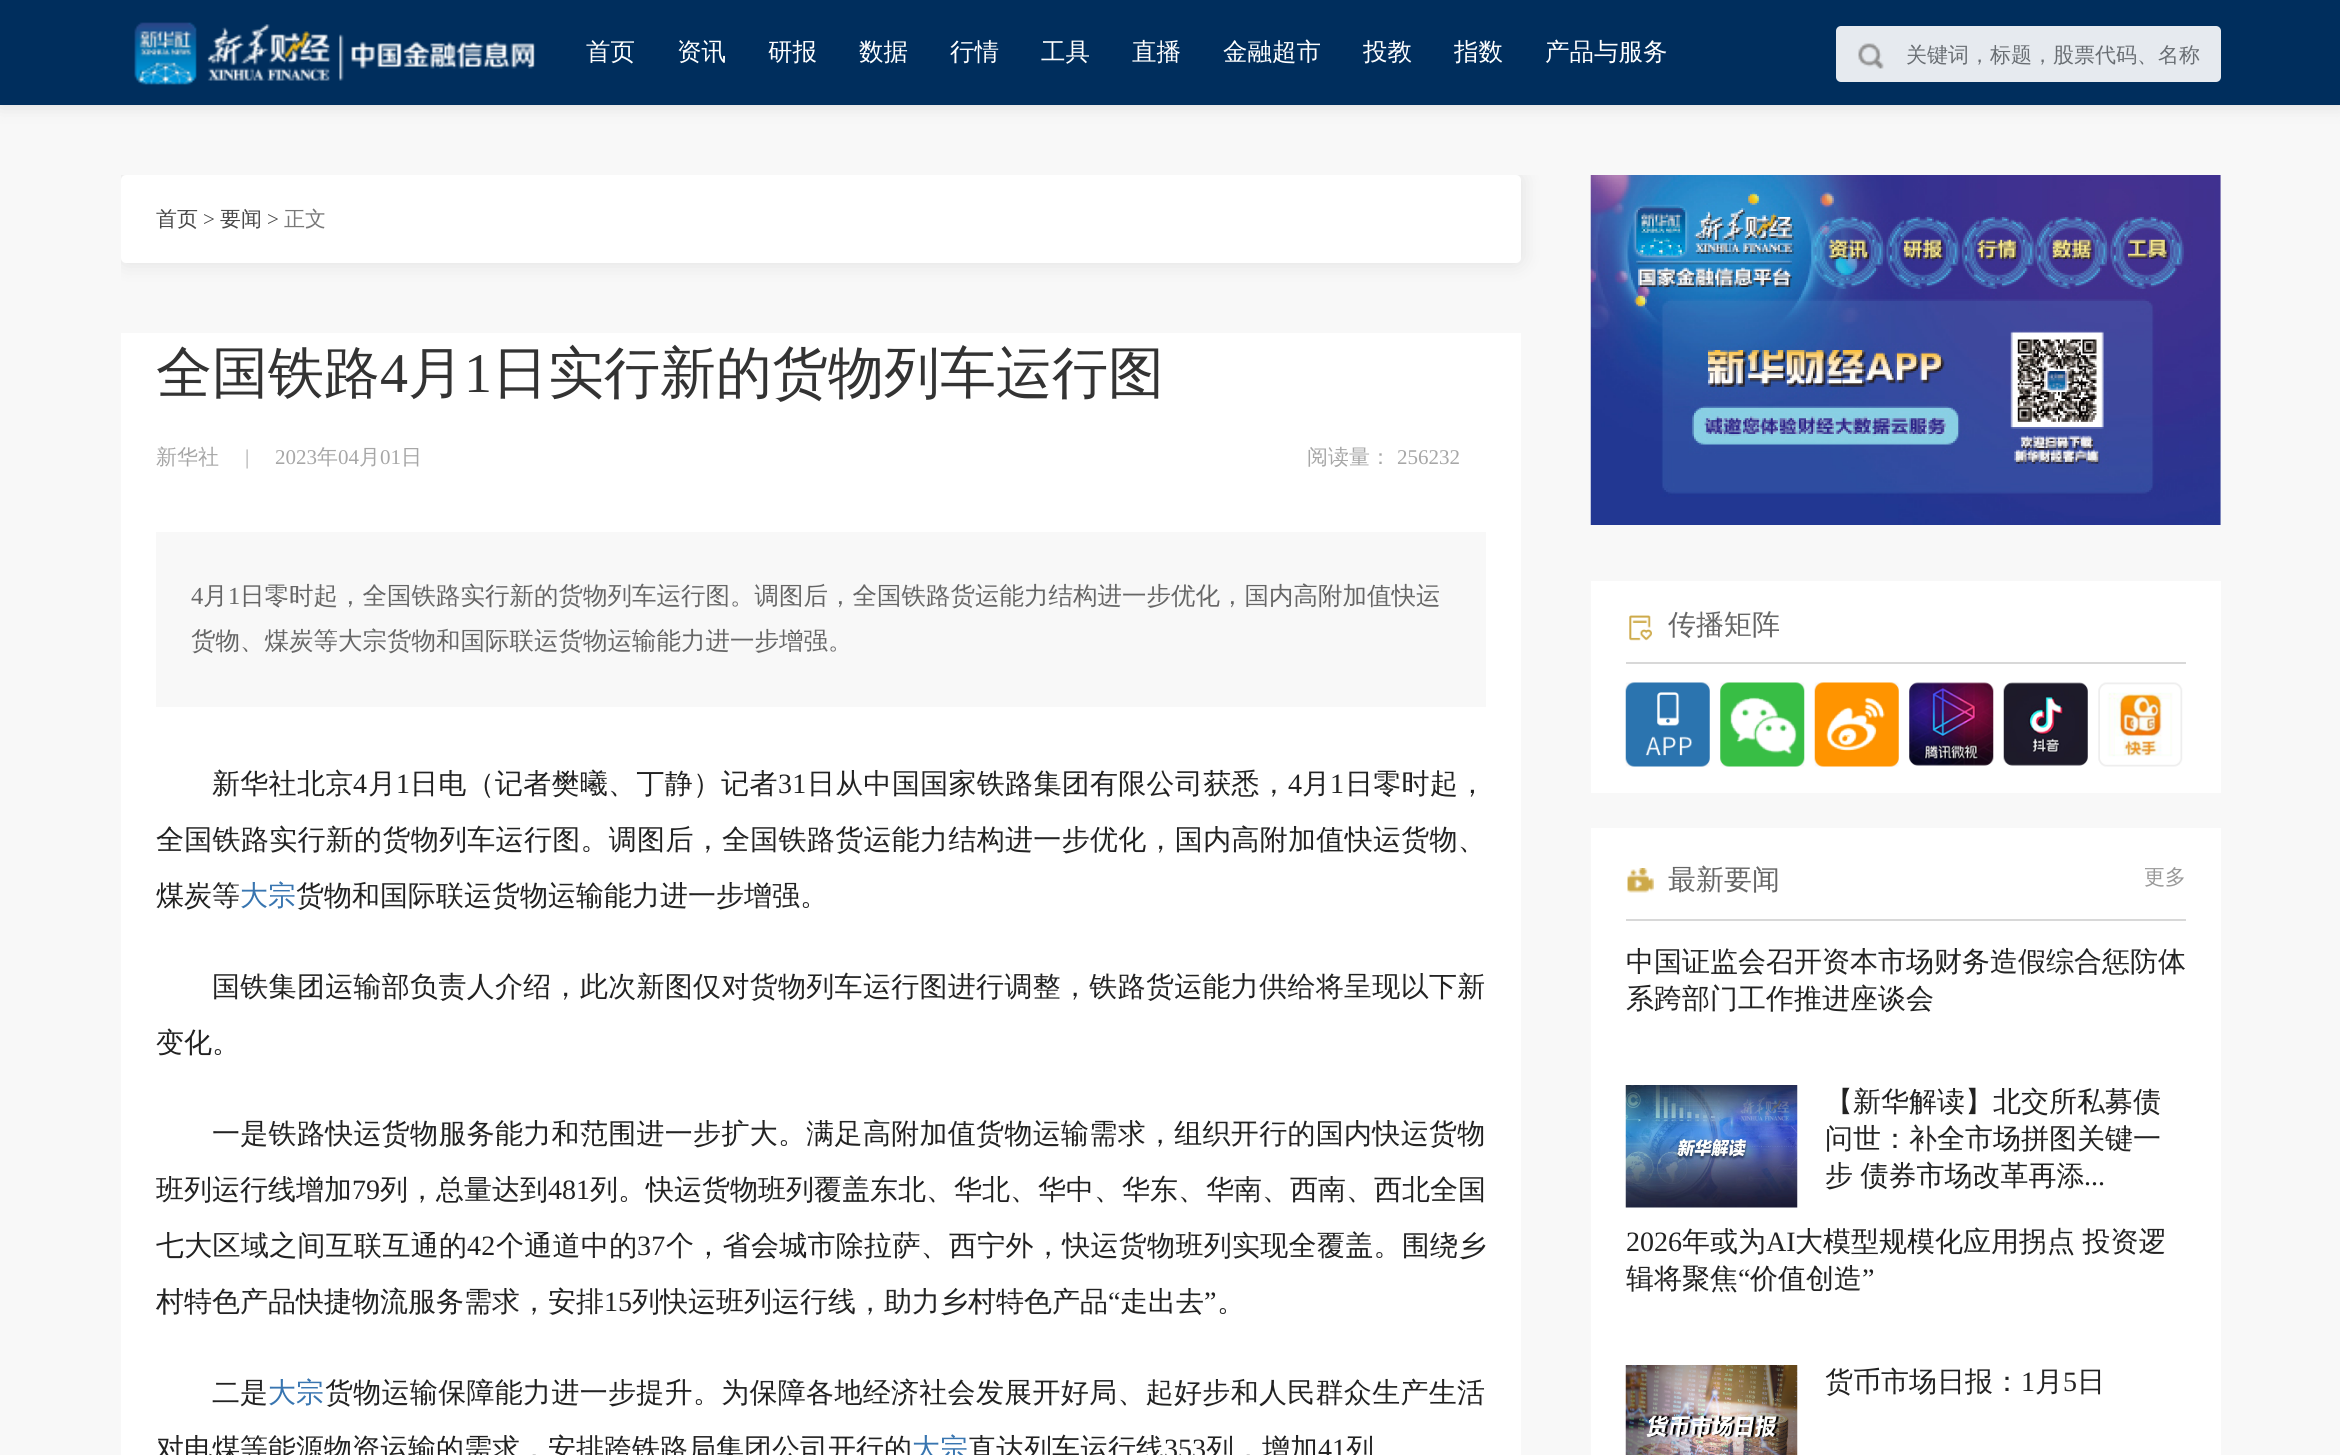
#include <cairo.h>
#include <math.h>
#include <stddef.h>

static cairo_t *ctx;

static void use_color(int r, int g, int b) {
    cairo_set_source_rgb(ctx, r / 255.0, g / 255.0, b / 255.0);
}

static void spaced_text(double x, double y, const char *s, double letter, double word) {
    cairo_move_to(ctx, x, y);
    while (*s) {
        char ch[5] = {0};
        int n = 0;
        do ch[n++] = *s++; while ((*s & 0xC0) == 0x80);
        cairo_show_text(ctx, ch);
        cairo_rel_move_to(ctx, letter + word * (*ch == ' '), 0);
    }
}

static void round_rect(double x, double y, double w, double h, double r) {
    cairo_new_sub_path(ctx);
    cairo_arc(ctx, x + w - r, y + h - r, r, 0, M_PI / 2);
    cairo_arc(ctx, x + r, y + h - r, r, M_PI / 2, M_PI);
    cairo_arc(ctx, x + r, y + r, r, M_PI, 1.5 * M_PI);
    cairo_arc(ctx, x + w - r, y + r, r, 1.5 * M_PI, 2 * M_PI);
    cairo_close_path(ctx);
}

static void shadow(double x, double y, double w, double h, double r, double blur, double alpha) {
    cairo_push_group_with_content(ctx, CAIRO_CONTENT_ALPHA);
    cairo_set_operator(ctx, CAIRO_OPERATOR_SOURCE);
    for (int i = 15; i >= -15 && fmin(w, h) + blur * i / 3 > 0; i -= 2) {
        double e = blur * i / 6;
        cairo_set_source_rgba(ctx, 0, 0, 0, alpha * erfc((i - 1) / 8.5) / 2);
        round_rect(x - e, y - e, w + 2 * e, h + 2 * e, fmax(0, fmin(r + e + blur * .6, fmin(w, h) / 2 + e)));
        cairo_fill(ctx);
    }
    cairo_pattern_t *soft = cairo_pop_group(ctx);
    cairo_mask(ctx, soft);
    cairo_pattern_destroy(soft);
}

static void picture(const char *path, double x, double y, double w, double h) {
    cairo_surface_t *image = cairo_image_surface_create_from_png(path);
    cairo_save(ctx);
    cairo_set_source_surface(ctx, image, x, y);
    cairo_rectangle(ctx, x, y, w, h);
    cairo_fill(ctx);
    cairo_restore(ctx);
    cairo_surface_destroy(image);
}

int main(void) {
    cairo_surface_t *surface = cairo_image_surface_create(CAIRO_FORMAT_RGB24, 2340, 1455);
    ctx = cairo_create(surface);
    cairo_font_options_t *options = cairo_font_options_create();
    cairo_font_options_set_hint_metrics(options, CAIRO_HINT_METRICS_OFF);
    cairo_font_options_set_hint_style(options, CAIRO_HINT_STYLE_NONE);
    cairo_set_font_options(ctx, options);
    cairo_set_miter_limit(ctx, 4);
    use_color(248, 248, 248);
    cairo_paint(ctx);
    use_color(0, 0, 0);
    shadow(0, 0, 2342, 105, 0, 10.5, 0.12);
    use_color(0, 46, 93);
    cairo_rectangle(ctx, 0, 0, 2340, 105);
    cairo_fill(ctx);
    picture("img1.png", 134, 22, 401, 63);
    cairo_select_font_face(ctx, "WenQuanYi Zen Hei Medium", CAIRO_FONT_SLANT_NORMAL, CAIRO_FONT_WEIGHT_NORMAL);
    cairo_set_font_size(ctx, 24.5);
    use_color(255, 255, 255);
    cairo_move_to(ctx, 586, 60);
    cairo_show_text(ctx, "首页");
    cairo_move_to(ctx, 677, 60);
    cairo_show_text(ctx, "资讯");
    cairo_move_to(ctx, 768, 60);
    cairo_show_text(ctx, "研报");
    cairo_move_to(ctx, 859, 60);
    cairo_show_text(ctx, "数据");
    cairo_move_to(ctx, 950, 60);
    cairo_show_text(ctx, "行情");
    cairo_move_to(ctx, 1041, 60);
    cairo_show_text(ctx, "工具");
    cairo_move_to(ctx, 1132, 60);
    cairo_show_text(ctx, "直播");
    cairo_move_to(ctx, 1223, 60);
    cairo_show_text(ctx, "金融超市");
    cairo_move_to(ctx, 1363, 60);
    cairo_show_text(ctx, "投教");
    cairo_move_to(ctx, 1454, 60);
    cairo_show_text(ctx, "指数");
    cairo_move_to(ctx, 1545, 60);
    cairo_show_text(ctx, "产品与服务");
    use_color(230, 234, 239);
    round_rect(1836, 26, 385, 56, 5);
    cairo_fill(ctx);
    picture("img2.png", 1858, 43, 26, 26);
    cairo_set_font_size(ctx, 21);
    use_color(105, 110, 115);
    cairo_move_to(ctx, 1906, 62);
    cairo_show_text(ctx, "关键词，标题，股票代码、名称");
    cairo_save(ctx);
    cairo_rectangle(ctx, 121, 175, 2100, 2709);
    cairo_clip(ctx);
    use_color(0, 0, 0);
    shadow(121, 175, 1400, 88, 5, 10.5, 0.1);
    cairo_restore(ctx);
    use_color(255, 255, 255);
    round_rect(121, 175, 1400, 88, 5);
    cairo_fill(ctx);
    use_color(72, 72, 72);
    cairo_move_to(ctx, 156, 226);
    cairo_show_text(ctx, "首页");
    cairo_select_font_face(ctx, "Liberation Serif", CAIRO_FONT_SLANT_NORMAL, CAIRO_FONT_WEIGHT_NORMAL);
    cairo_move_to(ctx, 203, 226);
    cairo_show_text(ctx, ">");
    cairo_select_font_face(ctx, "WenQuanYi Zen Hei Medium", CAIRO_FONT_SLANT_NORMAL, CAIRO_FONT_WEIGHT_NORMAL);
    cairo_move_to(ctx, 220, 226);
    cairo_show_text(ctx, "要闻");
    cairo_select_font_face(ctx, "Liberation Serif", CAIRO_FONT_SLANT_NORMAL, CAIRO_FONT_WEIGHT_NORMAL);
    cairo_move_to(ctx, 267, 226);
    cairo_show_text(ctx, ">");
    cairo_select_font_face(ctx, "WenQuanYi Zen Hei Medium", CAIRO_FONT_SLANT_NORMAL, CAIRO_FONT_WEIGHT_NORMAL);
    use_color(120, 120, 120);
    cairo_move_to(ctx, 284, 226);
    cairo_show_text(ctx, "正文");
    use_color(255, 255, 255);
    cairo_rectangle(ctx, 121, 333, 1400, 1122);
    cairo_fill(ctx);
    cairo_set_font_size(ctx, 56);
    use_color(51, 51, 51);
    cairo_move_to(ctx, 156, 392);
    cairo_show_text(ctx, "全国铁路");
    cairo_select_font_face(ctx, "Liberation Serif", CAIRO_FONT_SLANT_NORMAL, CAIRO_FONT_WEIGHT_NORMAL);
    cairo_move_to(ctx, 380, 392);
    cairo_show_text(ctx, "4");
    cairo_select_font_face(ctx, "WenQuanYi Zen Hei Medium", CAIRO_FONT_SLANT_NORMAL, CAIRO_FONT_WEIGHT_NORMAL);
    cairo_move_to(ctx, 408, 392);
    cairo_show_text(ctx, "月");
    cairo_select_font_face(ctx, "Liberation Serif", CAIRO_FONT_SLANT_NORMAL, CAIRO_FONT_WEIGHT_NORMAL);
    cairo_move_to(ctx, 464, 392);
    cairo_show_text(ctx, "1");
    cairo_select_font_face(ctx, "WenQuanYi Zen Hei Medium", CAIRO_FONT_SLANT_NORMAL, CAIRO_FONT_WEIGHT_NORMAL);
    cairo_move_to(ctx, 492, 392);
    cairo_show_text(ctx, "日实行新的货物列车运行图");
    cairo_set_font_size(ctx, 21);
    use_color(167, 167, 167);
    cairo_move_to(ctx, 156, 464);
    cairo_show_text(ctx, "新华社");
    cairo_select_font_face(ctx, "Liberation Serif", CAIRO_FONT_SLANT_NORMAL, CAIRO_FONT_WEIGHT_NORMAL);
    cairo_move_to(ctx, 245, 464);
    cairo_show_text(ctx, "|");
    cairo_move_to(ctx, 275, 464);
    cairo_show_text(ctx, "2023");
    cairo_select_font_face(ctx, "WenQuanYi Zen Hei Medium", CAIRO_FONT_SLANT_NORMAL, CAIRO_FONT_WEIGHT_NORMAL);
    cairo_move_to(ctx, 317, 464);
    cairo_show_text(ctx, "年");
    cairo_select_font_face(ctx, "Liberation Serif", CAIRO_FONT_SLANT_NORMAL, CAIRO_FONT_WEIGHT_NORMAL);
    cairo_move_to(ctx, 338, 464);
    cairo_show_text(ctx, "04");
    cairo_select_font_face(ctx, "WenQuanYi Zen Hei Medium", CAIRO_FONT_SLANT_NORMAL, CAIRO_FONT_WEIGHT_NORMAL);
    cairo_move_to(ctx, 359, 464);
    cairo_show_text(ctx, "月");
    cairo_select_font_face(ctx, "Liberation Serif", CAIRO_FONT_SLANT_NORMAL, CAIRO_FONT_WEIGHT_NORMAL);
    cairo_move_to(ctx, 380, 464);
    cairo_show_text(ctx, "01");
    cairo_select_font_face(ctx, "WenQuanYi Zen Hei Medium", CAIRO_FONT_SLANT_NORMAL, CAIRO_FONT_WEIGHT_NORMAL);
    cairo_move_to(ctx, 401, 464);
    cairo_show_text(ctx, "日");
    cairo_move_to(ctx, 1307, 464);
    cairo_show_text(ctx, "阅读量：");
    cairo_select_font_face(ctx, "Liberation Serif", CAIRO_FONT_SLANT_NORMAL, CAIRO_FONT_WEIGHT_NORMAL);
    cairo_move_to(ctx, 1397, 464);
    cairo_show_text(ctx, "256232");
    use_color(248, 248, 248);
    cairo_rectangle(ctx, 156, 532, 1330, 175);
    cairo_fill(ctx);
    cairo_set_font_size(ctx, 24.5);
    use_color(102, 102, 102);
    cairo_move_to(ctx, 191, 604);
    cairo_show_text(ctx, "4");
    cairo_select_font_face(ctx, "WenQuanYi Zen Hei Medium", CAIRO_FONT_SLANT_NORMAL, CAIRO_FONT_WEIGHT_NORMAL);
    cairo_move_to(ctx, 203, 604);
    cairo_show_text(ctx, "月");
    cairo_select_font_face(ctx, "Liberation Serif", CAIRO_FONT_SLANT_NORMAL, CAIRO_FONT_WEIGHT_NORMAL);
    cairo_move_to(ctx, 228, 604);
    cairo_show_text(ctx, "1");
    cairo_select_font_face(ctx, "WenQuanYi Zen Hei Medium", CAIRO_FONT_SLANT_NORMAL, CAIRO_FONT_WEIGHT_NORMAL);
    cairo_move_to(ctx, 240, 604);
    cairo_show_text(ctx, "日零时起，全国铁路实行新的货物列车运行图。调图后，全国铁路货运能力结构进一步优化，国内高附加值快运");
    cairo_move_to(ctx, 191, 649);
    cairo_show_text(ctx, "货物、煤炭等大宗货物和国际联运货物运输能力进一步增强。");
    cairo_set_font_size(ctx, 28);
    use_color(34, 34, 34);
    spaced_text(212, 793, "新华社北京", 0.3, 0);
    cairo_select_font_face(ctx, "Liberation Serif", CAIRO_FONT_SLANT_NORMAL, CAIRO_FONT_WEIGHT_NORMAL);
    spaced_text(353, 793, "4", 0.3, 0);
    cairo_select_font_face(ctx, "WenQuanYi Zen Hei Medium", CAIRO_FONT_SLANT_NORMAL, CAIRO_FONT_WEIGHT_NORMAL);
    spaced_text(368, 793, "月", 0.3, 0);
    cairo_select_font_face(ctx, "Liberation Serif", CAIRO_FONT_SLANT_NORMAL, CAIRO_FONT_WEIGHT_NORMAL);
    spaced_text(396, 793, "1", 0.3, 0);
    cairo_select_font_face(ctx, "WenQuanYi Zen Hei Medium", CAIRO_FONT_SLANT_NORMAL, CAIRO_FONT_WEIGHT_NORMAL);
    spaced_text(410, 793, "日电（记者樊曦、丁静）记者", 0.3, 0);
    cairo_select_font_face(ctx, "Liberation Serif", CAIRO_FONT_SLANT_NORMAL, CAIRO_FONT_WEIGHT_NORMAL);
    spaced_text(778, 793, "31", 0.3, 0);
    cairo_select_font_face(ctx, "WenQuanYi Zen Hei Medium", CAIRO_FONT_SLANT_NORMAL, CAIRO_FONT_WEIGHT_NORMAL);
    spaced_text(807, 793, "日从中国国家铁路集团有限公司获悉，", 0.3, 0);
    cairo_select_font_face(ctx, "Liberation Serif", CAIRO_FONT_SLANT_NORMAL, CAIRO_FONT_WEIGHT_NORMAL);
    spaced_text(1288, 793, "4", 0.3, 0);
    cairo_select_font_face(ctx, "WenQuanYi Zen Hei Medium", CAIRO_FONT_SLANT_NORMAL, CAIRO_FONT_WEIGHT_NORMAL);
    spaced_text(1302, 793, "月", 0.3, 0);
    cairo_select_font_face(ctx, "Liberation Serif", CAIRO_FONT_SLANT_NORMAL, CAIRO_FONT_WEIGHT_NORMAL);
    spaced_text(1330, 793, "1", 0.3, 0);
    cairo_select_font_face(ctx, "WenQuanYi Zen Hei Medium", CAIRO_FONT_SLANT_NORMAL, CAIRO_FONT_WEIGHT_NORMAL);
    spaced_text(1345, 793, "日零时起，", 0.3, 0);
    spaced_text(156, 849, "全国铁路实行新的货物列车运行图。调图后，全国铁路货运能力结构进一步优化，国内高附加值快运货物、", 0.3, 0);
    cairo_move_to(ctx, 156, 905);
    cairo_show_text(ctx, "煤炭等");
    use_color(56, 117, 176);
    cairo_move_to(ctx, 240, 905);
    cairo_show_text(ctx, "大宗");
    use_color(34, 34, 34);
    cairo_move_to(ctx, 296, 905);
    cairo_show_text(ctx, "货物和国际联运货物运输能力进一步增强。");
    spaced_text(212, 996, "国铁集团运输部负责人介绍，此次新图仅对货物列车运行图进行调整，铁路货运能力供给将呈现以下新", 0.3, 0);
    cairo_move_to(ctx, 156, 1052);
    cairo_show_text(ctx, "变化。");
    spaced_text(212, 1143, "一是铁路快运货物服务能力和范围进一步扩大。满足高附加值货物运输需求，组织开行的国内快运货物", 0.3, 0);
    cairo_move_to(ctx, 156, 1199);
    cairo_show_text(ctx, "班列运行线增加");
    cairo_select_font_face(ctx, "Liberation Serif", CAIRO_FONT_SLANT_NORMAL, CAIRO_FONT_WEIGHT_NORMAL);
    cairo_move_to(ctx, 352, 1199);
    cairo_show_text(ctx, "79");
    cairo_select_font_face(ctx, "WenQuanYi Zen Hei Medium", CAIRO_FONT_SLANT_NORMAL, CAIRO_FONT_WEIGHT_NORMAL);
    cairo_move_to(ctx, 380, 1199);
    cairo_show_text(ctx, "列，总量达到");
    cairo_select_font_face(ctx, "Liberation Serif", CAIRO_FONT_SLANT_NORMAL, CAIRO_FONT_WEIGHT_NORMAL);
    cairo_move_to(ctx, 548, 1199);
    cairo_show_text(ctx, "481");
    cairo_select_font_face(ctx, "WenQuanYi Zen Hei Medium", CAIRO_FONT_SLANT_NORMAL, CAIRO_FONT_WEIGHT_NORMAL);
    cairo_move_to(ctx, 590, 1199);
    cairo_show_text(ctx, "列。快运货物班列覆盖东北、华北、华中、华东、华南、西南、西北全国");
    spaced_text(156, 1255, "七大区域之间互联互通的", 0.3, 0);
    cairo_select_font_face(ctx, "Liberation Serif", CAIRO_FONT_SLANT_NORMAL, CAIRO_FONT_WEIGHT_NORMAL);
    spaced_text(467, 1255, "42", 0.3, 0);
    cairo_select_font_face(ctx, "WenQuanYi Zen Hei Medium", CAIRO_FONT_SLANT_NORMAL, CAIRO_FONT_WEIGHT_NORMAL);
    spaced_text(496, 1255, "个通道中的", 0.3, 0);
    cairo_select_font_face(ctx, "Liberation Serif", CAIRO_FONT_SLANT_NORMAL, CAIRO_FONT_WEIGHT_NORMAL);
    spaced_text(637, 1255, "37", 0.3, 0);
    cairo_select_font_face(ctx, "WenQuanYi Zen Hei Medium", CAIRO_FONT_SLANT_NORMAL, CAIRO_FONT_WEIGHT_NORMAL);
    spaced_text(666, 1255, "个，省会城市除拉萨、西宁外，快运货物班列实现全覆盖。围绕乡", 0.3, 0);
    cairo_move_to(ctx, 156, 1311);
    cairo_show_text(ctx, "村特色产品快捷物流服务需求，安排");
    cairo_select_font_face(ctx, "Liberation Serif", CAIRO_FONT_SLANT_NORMAL, CAIRO_FONT_WEIGHT_NORMAL);
    cairo_move_to(ctx, 604, 1311);
    cairo_show_text(ctx, "15");
    cairo_select_font_face(ctx, "WenQuanYi Zen Hei Medium", CAIRO_FONT_SLANT_NORMAL, CAIRO_FONT_WEIGHT_NORMAL);
    cairo_move_to(ctx, 632, 1311);
    cairo_show_text(ctx, "列快运班列运行线，助力乡村特色产品");
    cairo_select_font_face(ctx, "Liberation Serif", CAIRO_FONT_SLANT_NORMAL, CAIRO_FONT_WEIGHT_NORMAL);
    cairo_move_to(ctx, 1108, 1311);
    cairo_show_text(ctx, "“");
    cairo_select_font_face(ctx, "WenQuanYi Zen Hei Medium", CAIRO_FONT_SLANT_NORMAL, CAIRO_FONT_WEIGHT_NORMAL);
    cairo_move_to(ctx, 1120, 1311);
    cairo_show_text(ctx, "走出去");
    cairo_select_font_face(ctx, "Liberation Serif", CAIRO_FONT_SLANT_NORMAL, CAIRO_FONT_WEIGHT_NORMAL);
    cairo_move_to(ctx, 1204, 1311);
    cairo_show_text(ctx, "”");
    cairo_select_font_face(ctx, "WenQuanYi Zen Hei Medium", CAIRO_FONT_SLANT_NORMAL, CAIRO_FONT_WEIGHT_NORMAL);
    cairo_move_to(ctx, 1217, 1311);
    cairo_show_text(ctx, "。");
    cairo_move_to(ctx, 212, 1402);
    cairo_show_text(ctx, "二是");
    use_color(56, 117, 176);
    cairo_move_to(ctx, 268, 1402);
    cairo_show_text(ctx, "大宗");
    use_color(34, 34, 34);
    spaced_text(325, 1402, "货物运输保障能力进一步提升。为保障各地经济社会发展开好局、起好步和人民群众生产生活", 0.3, 0);
    cairo_move_to(ctx, 156, 1458);
    cairo_show_text(ctx, "对电煤等能源物资运输的需求，安排跨铁路局集团公司开行的");
    use_color(56, 117, 176);
    cairo_move_to(ctx, 912, 1458);
    cairo_show_text(ctx, "大宗");
    use_color(34, 34, 34);
    cairo_move_to(ctx, 968, 1458);
    cairo_show_text(ctx, "直达列车运行线");
    cairo_select_font_face(ctx, "Liberation Serif", CAIRO_FONT_SLANT_NORMAL, CAIRO_FONT_WEIGHT_NORMAL);
    cairo_move_to(ctx, 1164, 1458);
    cairo_show_text(ctx, "353");
    cairo_select_font_face(ctx, "WenQuanYi Zen Hei Medium", CAIRO_FONT_SLANT_NORMAL, CAIRO_FONT_WEIGHT_NORMAL);
    cairo_move_to(ctx, 1206, 1458);
    cairo_show_text(ctx, "列，增加");
    cairo_select_font_face(ctx, "Liberation Serif", CAIRO_FONT_SLANT_NORMAL, CAIRO_FONT_WEIGHT_NORMAL);
    cairo_move_to(ctx, 1318, 1458);
    cairo_show_text(ctx, "41");
    cairo_select_font_face(ctx, "WenQuanYi Zen Hei Medium", CAIRO_FONT_SLANT_NORMAL, CAIRO_FONT_WEIGHT_NORMAL);
    cairo_move_to(ctx, 1346, 1458);
    cairo_show_text(ctx, "列");
    picture("img3.png", 1590, 175, 631, 350);
    use_color(255, 255, 255);
    cairo_rectangle(ctx, 1591, 581, 630, 212);
    cairo_fill(ctx);
    use_color(216, 216, 216);
    cairo_rectangle(ctx, 1626, 662, 560, 2);
    cairo_fill(ctx);
    picture("img4.png", 1629, 615, 23, 26);
    use_color(102, 102, 102);
    cairo_move_to(ctx, 1668, 634);
    cairo_show_text(ctx, "传播矩阵");
    picture("img5.png", 1625, 682, 85, 85);
    picture("img6.png", 1720, 682, 85, 85);
    picture("img7.png", 1814, 682, 85, 85);
    picture("img8.png", 1909, 682, 85, 84);
    picture("img9.png", 2003, 682, 85, 84);
    picture("img10.png", 2098, 682, 85, 85);
    use_color(255, 255, 255);
    cairo_rectangle(ctx, 1591, 828, 630, 627);
    cairo_fill(ctx);
    picture("img11.png", 1627, 868, 27, 25);
    use_color(102, 102, 102);
    cairo_move_to(ctx, 1668, 889);
    cairo_show_text(ctx, "最新要闻");
    cairo_set_font_size(ctx, 21);
    use_color(153, 153, 153);
    cairo_move_to(ctx, 2144, 884);
    cairo_show_text(ctx, "更多");
    use_color(216, 216, 216);
    cairo_rectangle(ctx, 1626, 919, 560, 2);
    cairo_fill(ctx);
    cairo_set_font_size(ctx, 28);
    use_color(34, 34, 34);
    cairo_move_to(ctx, 1626, 971);
    cairo_show_text(ctx, "中国证监会召开资本市场财务造假综合惩防体");
    cairo_move_to(ctx, 1626, 1008);
    cairo_show_text(ctx, "系跨部门工作推进座谈会");
    picture("img12.png", 1625, 1085, 173, 123);
    cairo_move_to(ctx, 1825, 1111);
    cairo_show_text(ctx, "【新华解读】北交所私募债");
    cairo_move_to(ctx, 1825, 1148);
    cairo_show_text(ctx, "问世：补全市场拼图关键一");
    spaced_text(1825, 1185, "步 债券市场改革再添", 0, -1);
    cairo_select_font_face(ctx, "Liberation Serif", CAIRO_FONT_SLANT_NORMAL, CAIRO_FONT_WEIGHT_NORMAL);
    cairo_move_to(ctx, 2084, 1185);
    cairo_show_text(ctx, "...");
    cairo_move_to(ctx, 1626, 1251);
    cairo_show_text(ctx, "2026");
    cairo_select_font_face(ctx, "WenQuanYi Zen Hei Medium", CAIRO_FONT_SLANT_NORMAL, CAIRO_FONT_WEIGHT_NORMAL);
    cairo_move_to(ctx, 1682, 1251);
    cairo_show_text(ctx, "年或为");
    cairo_select_font_face(ctx, "Liberation Serif", CAIRO_FONT_SLANT_NORMAL, CAIRO_FONT_WEIGHT_NORMAL);
    cairo_move_to(ctx, 1766, 1251);
    cairo_show_text(ctx, "AI");
    cairo_select_font_face(ctx, "WenQuanYi Zen Hei Medium", CAIRO_FONT_SLANT_NORMAL, CAIRO_FONT_WEIGHT_NORMAL);
    spaced_text(1795, 1251, "大模型规模化应用拐点 投资逻", 0, -1);
    cairo_move_to(ctx, 1626, 1288);
    cairo_show_text(ctx, "辑将聚焦");
    cairo_select_font_face(ctx, "Liberation Serif", CAIRO_FONT_SLANT_NORMAL, CAIRO_FONT_WEIGHT_NORMAL);
    cairo_move_to(ctx, 1738, 1288);
    cairo_show_text(ctx, "“");
    cairo_select_font_face(ctx, "WenQuanYi Zen Hei Medium", CAIRO_FONT_SLANT_NORMAL, CAIRO_FONT_WEIGHT_NORMAL);
    cairo_move_to(ctx, 1750, 1288);
    cairo_show_text(ctx, "价值创造");
    cairo_select_font_face(ctx, "Liberation Serif", CAIRO_FONT_SLANT_NORMAL, CAIRO_FONT_WEIGHT_NORMAL);
    cairo_move_to(ctx, 1862, 1288);
    cairo_show_text(ctx, "”");
    picture("img13.png", 1625, 1365, 173, 90);
    cairo_select_font_face(ctx, "WenQuanYi Zen Hei Medium", CAIRO_FONT_SLANT_NORMAL, CAIRO_FONT_WEIGHT_NORMAL);
    cairo_move_to(ctx, 1825, 1391);
    cairo_show_text(ctx, "货币市场日报：");
    cairo_select_font_face(ctx, "Liberation Serif", CAIRO_FONT_SLANT_NORMAL, CAIRO_FONT_WEIGHT_NORMAL);
    cairo_move_to(ctx, 2021, 1391);
    cairo_show_text(ctx, "1");
    cairo_select_font_face(ctx, "WenQuanYi Zen Hei Medium", CAIRO_FONT_SLANT_NORMAL, CAIRO_FONT_WEIGHT_NORMAL);
    cairo_move_to(ctx, 2035, 1391);
    cairo_show_text(ctx, "月");
    cairo_select_font_face(ctx, "Liberation Serif", CAIRO_FONT_SLANT_NORMAL, CAIRO_FONT_WEIGHT_NORMAL);
    cairo_move_to(ctx, 2063, 1391);
    cairo_show_text(ctx, "5");
    cairo_select_font_face(ctx, "WenQuanYi Zen Hei Medium", CAIRO_FONT_SLANT_NORMAL, CAIRO_FONT_WEIGHT_NORMAL);
    cairo_move_to(ctx, 2077, 1391);
    cairo_show_text(ctx, "日");
    cairo_surface_write_to_png(surface, "result.png");
    cairo_font_options_destroy(options);
    cairo_destroy(ctx);
    cairo_surface_destroy(surface);
    return 0;
}
